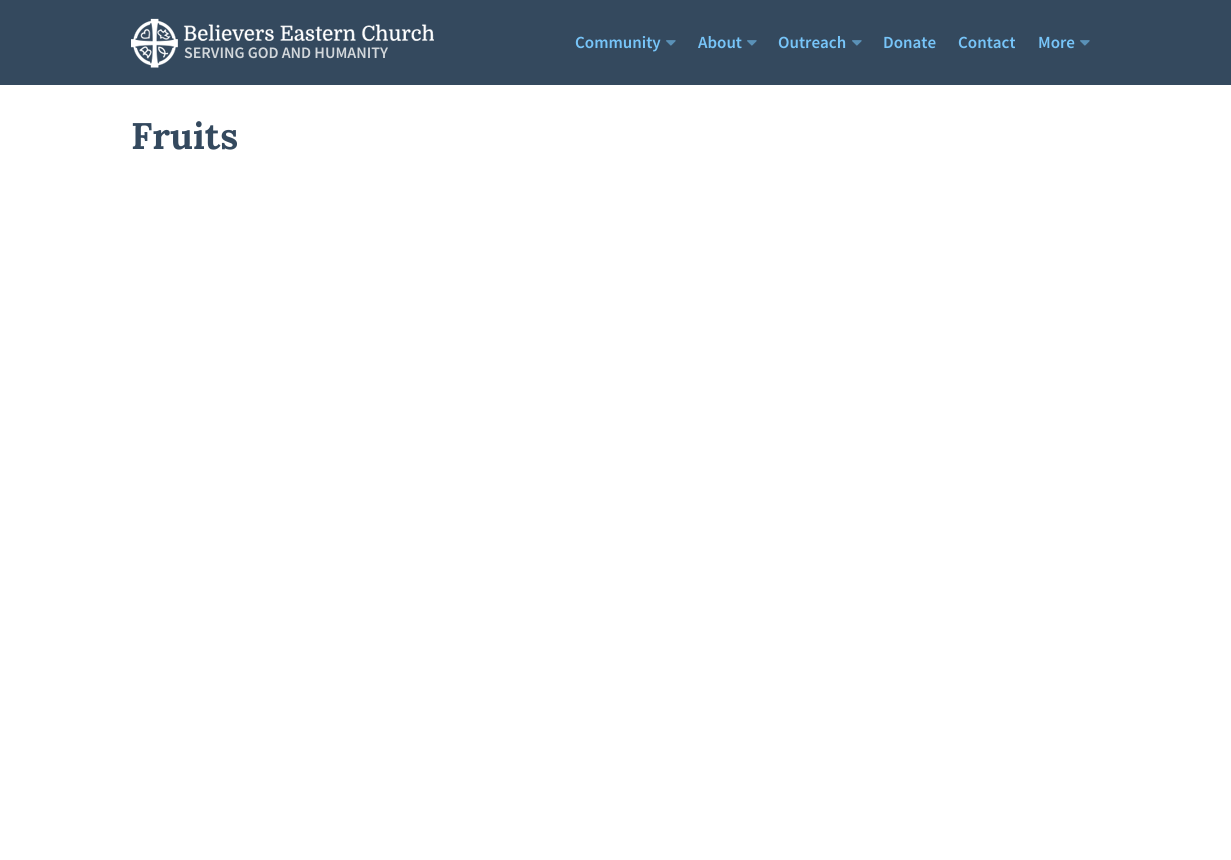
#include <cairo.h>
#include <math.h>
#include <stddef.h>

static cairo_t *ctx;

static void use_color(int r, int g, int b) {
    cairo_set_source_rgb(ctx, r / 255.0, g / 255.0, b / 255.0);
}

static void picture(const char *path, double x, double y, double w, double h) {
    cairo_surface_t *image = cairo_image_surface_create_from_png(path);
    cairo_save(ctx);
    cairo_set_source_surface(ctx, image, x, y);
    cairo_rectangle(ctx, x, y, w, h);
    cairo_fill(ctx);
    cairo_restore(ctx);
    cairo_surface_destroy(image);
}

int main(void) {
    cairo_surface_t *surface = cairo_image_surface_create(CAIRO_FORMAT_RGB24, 1231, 860);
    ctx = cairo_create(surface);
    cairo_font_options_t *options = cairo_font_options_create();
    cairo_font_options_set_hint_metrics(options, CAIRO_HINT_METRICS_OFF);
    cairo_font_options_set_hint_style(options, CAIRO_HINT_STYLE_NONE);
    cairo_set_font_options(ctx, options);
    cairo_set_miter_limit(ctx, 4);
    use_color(255, 255, 255);
    cairo_paint(ctx);
    use_color(52, 73, 94);
    cairo_rectangle(ctx, 0, 0, 1231, 85);
    cairo_fill(ctx);
    picture("img1.png", 131, 18, 303, 50);
    cairo_select_font_face(ctx, "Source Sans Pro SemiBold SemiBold", CAIRO_FONT_SLANT_NORMAL, CAIRO_FONT_WEIGHT_NORMAL);
    cairo_set_font_size(ctx, 16);
    use_color(210, 215, 219);
    cairo_move_to(ctx, 184, 58);
    cairo_show_text(ctx, "SERVING GOD AND HUMANITY");
    cairo_set_font_size(ctx, 17);
    use_color(119, 197, 249);
    cairo_move_to(ctx, 575, 48);
    cairo_show_text(ctx, "Community");
    picture("img2.png", 666, 40, 10, 6);
    cairo_move_to(ctx, 698, 48);
    cairo_show_text(ctx, "About");
    picture("img2.png", 747, 40, 10, 6);
    cairo_move_to(ctx, 778, 48);
    cairo_show_text(ctx, "Outreach");
    picture("img2.png", 852, 40, 10, 6);
    cairo_move_to(ctx, 883, 48);
    cairo_show_text(ctx, "Donate");
    cairo_move_to(ctx, 958, 48);
    cairo_show_text(ctx, "Contact");
    cairo_move_to(ctx, 1038, 48);
    cairo_show_text(ctx, "More");
    picture("img2.png", 1080, 40, 10, 6);
    cairo_select_font_face(ctx, "Lora", CAIRO_FONT_SLANT_NORMAL, CAIRO_FONT_WEIGHT_BOLD);
    cairo_set_font_size(ctx, 37);
    use_color(52, 73, 94);
    cairo_move_to(ctx, 131, 149);
    cairo_show_text(ctx, "Fruits");
    cairo_surface_write_to_png(surface, "result.png");
    cairo_font_options_destroy(options);
    cairo_destroy(ctx);
    cairo_surface_destroy(surface);
    return 0;
}
